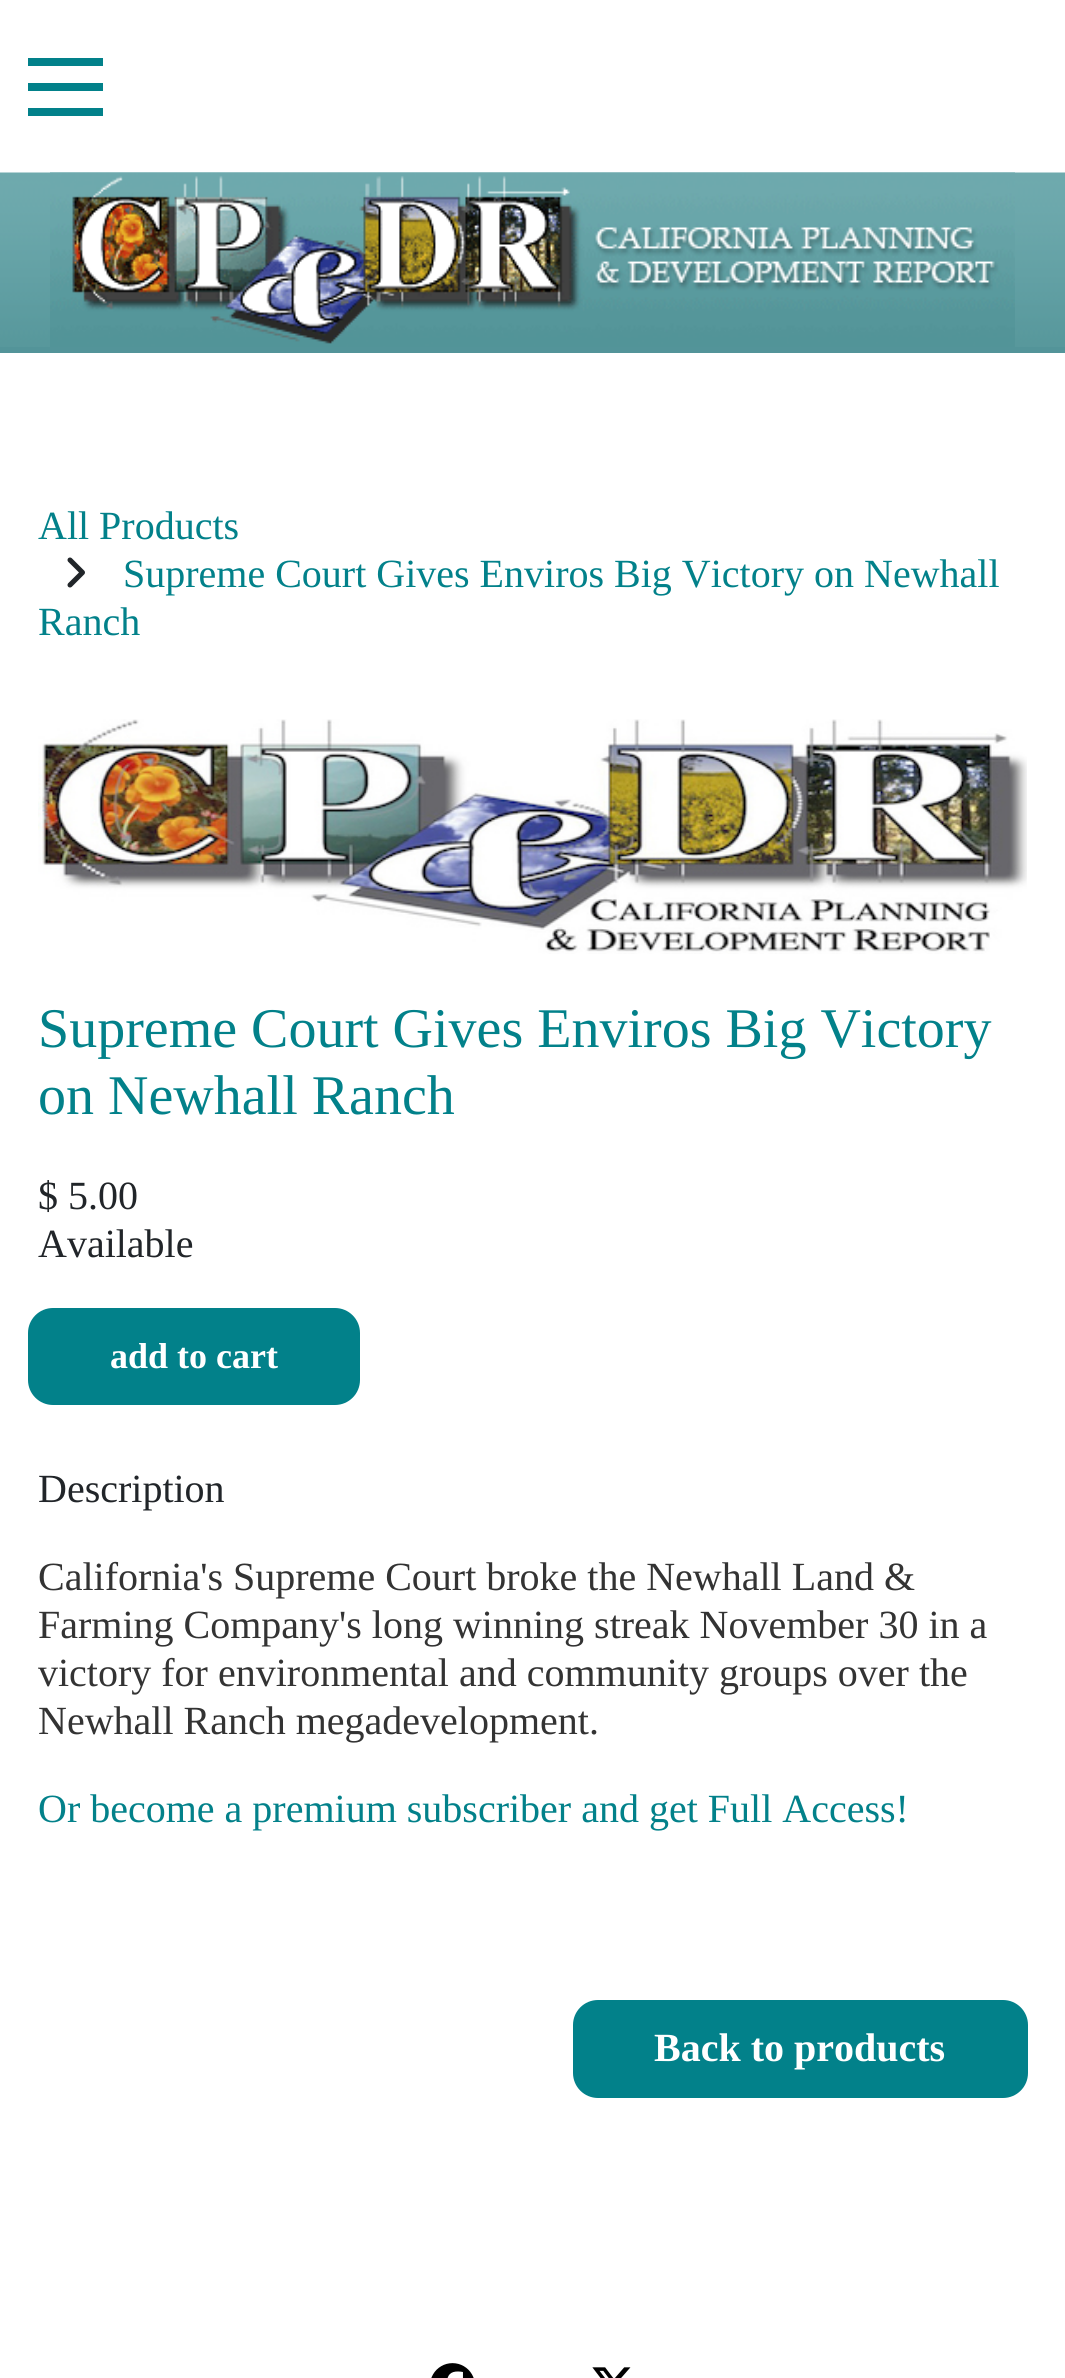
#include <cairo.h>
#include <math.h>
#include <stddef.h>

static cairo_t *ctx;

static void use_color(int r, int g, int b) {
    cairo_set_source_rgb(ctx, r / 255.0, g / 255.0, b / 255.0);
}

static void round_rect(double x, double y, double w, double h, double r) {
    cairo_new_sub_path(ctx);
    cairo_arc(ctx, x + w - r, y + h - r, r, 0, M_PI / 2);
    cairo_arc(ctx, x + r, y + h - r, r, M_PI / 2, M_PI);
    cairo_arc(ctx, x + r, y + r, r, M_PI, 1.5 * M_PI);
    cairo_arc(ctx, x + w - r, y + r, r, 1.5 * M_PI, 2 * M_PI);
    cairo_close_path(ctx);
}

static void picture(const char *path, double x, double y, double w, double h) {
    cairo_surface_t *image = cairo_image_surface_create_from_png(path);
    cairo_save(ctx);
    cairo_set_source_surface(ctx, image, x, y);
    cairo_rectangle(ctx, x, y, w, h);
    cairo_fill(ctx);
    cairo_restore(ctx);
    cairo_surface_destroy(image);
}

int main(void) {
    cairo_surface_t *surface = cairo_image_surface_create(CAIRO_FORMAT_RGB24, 1065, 2378);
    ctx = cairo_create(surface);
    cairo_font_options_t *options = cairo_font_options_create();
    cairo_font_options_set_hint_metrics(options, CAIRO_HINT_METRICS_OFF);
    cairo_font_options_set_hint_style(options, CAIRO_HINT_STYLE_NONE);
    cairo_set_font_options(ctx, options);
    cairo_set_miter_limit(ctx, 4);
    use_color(255, 255, 255);
    cairo_paint(ctx);
    use_color(2, 129, 138);
    cairo_rectangle(ctx, 28, 58, 75, 8);
    cairo_fill(ctx);
    cairo_rectangle(ctx, 28, 83, 75, 8);
    cairo_fill(ctx);
    cairo_rectangle(ctx, 28, 108, 75, 8);
    cairo_fill(ctx);
    use_color(83, 148, 153);
    cairo_rectangle(ctx, 0, 347, 1065, 6);
    cairo_fill(ctx);
    picture("img1.png", 0, 172, 1065, 175);
    picture("img2.png", 50, 172, 965, 175);
    cairo_select_font_face(ctx, "Liberation Serif", CAIRO_FONT_SLANT_NORMAL, CAIRO_FONT_WEIGHT_NORMAL);
    cairo_set_font_size(ctx, 40);
    use_color(2, 129, 138);
    cairo_move_to(ctx, 38, 539);
    cairo_show_text(ctx, "All Products");
    picture("img3.png", 67, 557, 18, 31);
    cairo_move_to(ctx, 123, 587);
    cairo_show_text(ctx, "Supreme Court Gives Enviros Big Victory on Newhall");
    cairo_move_to(ctx, 38, 635);
    cairo_show_text(ctx, "Ranch");
    picture("img4.png", 38, 719, 989, 235);
    cairo_set_font_size(ctx, 56);
    cairo_move_to(ctx, 38, 1047);
    cairo_show_text(ctx, "Supreme Court Gives Enviros Big Victory");
    cairo_move_to(ctx, 38, 1114);
    cairo_show_text(ctx, "on Newhall Ranch");
    cairo_set_font_size(ctx, 40);
    use_color(33, 37, 41);
    cairo_move_to(ctx, 38, 1209);
    cairo_show_text(ctx, "$ 5.00");
    cairo_move_to(ctx, 38, 1257);
    cairo_show_text(ctx, "Available");
    use_color(2, 129, 138);
    round_rect(29.5, 1309.5, 329, 94, 23.5);
    cairo_fill_preserve(ctx);
    cairo_set_line_width(ctx, 3);
    cairo_stroke(ctx);
    cairo_select_font_face(ctx, "Liberation Serif", CAIRO_FONT_SLANT_NORMAL, CAIRO_FONT_WEIGHT_BOLD);
    cairo_set_font_size(ctx, 36);
    use_color(255, 255, 255);
    cairo_move_to(ctx, 110, 1368);
    cairo_show_text(ctx, "add to cart");
    cairo_select_font_face(ctx, "Liberation Serif", CAIRO_FONT_SLANT_NORMAL, CAIRO_FONT_WEIGHT_NORMAL);
    cairo_set_font_size(ctx, 40);
    use_color(33, 37, 41);
    cairo_move_to(ctx, 38, 1502);
    cairo_show_text(ctx, "Description");
    use_color(51, 51, 51);
    cairo_move_to(ctx, 38, 1590);
    cairo_show_text(ctx, "California's Supreme Court broke the Newhall Land &");
    cairo_move_to(ctx, 38, 1638);
    cairo_show_text(ctx, "Farming Company's long winning streak November 30 in a");
    cairo_move_to(ctx, 38, 1686);
    cairo_show_text(ctx, "victory for environmental and community groups over the");
    cairo_move_to(ctx, 38, 1734);
    cairo_show_text(ctx, "Newhall Ranch megadevelopment.");
    use_color(2, 129, 138);
    cairo_move_to(ctx, 38, 1822);
    cairo_show_text(ctx, "Or become a premium subscriber and get Full Access!");
    round_rect(574.5, 2001.5, 452, 95, 23.5);
    cairo_fill_preserve(ctx);
    cairo_stroke(ctx);
    cairo_select_font_face(ctx, "Liberation Serif", CAIRO_FONT_SLANT_NORMAL, CAIRO_FONT_WEIGHT_BOLD);
    use_color(255, 255, 255);
    cairo_move_to(ctx, 654, 2061);
    cairo_show_text(ctx, "Back to products");
    picture("img5.png", 431, 2363, 43, 15);
    picture("img6.png", 592, 2367, 39, 11);
    cairo_surface_write_to_png(surface, "result.png");
    cairo_font_options_destroy(options);
    cairo_destroy(ctx);
    cairo_surface_destroy(surface);
    return 0;
}
